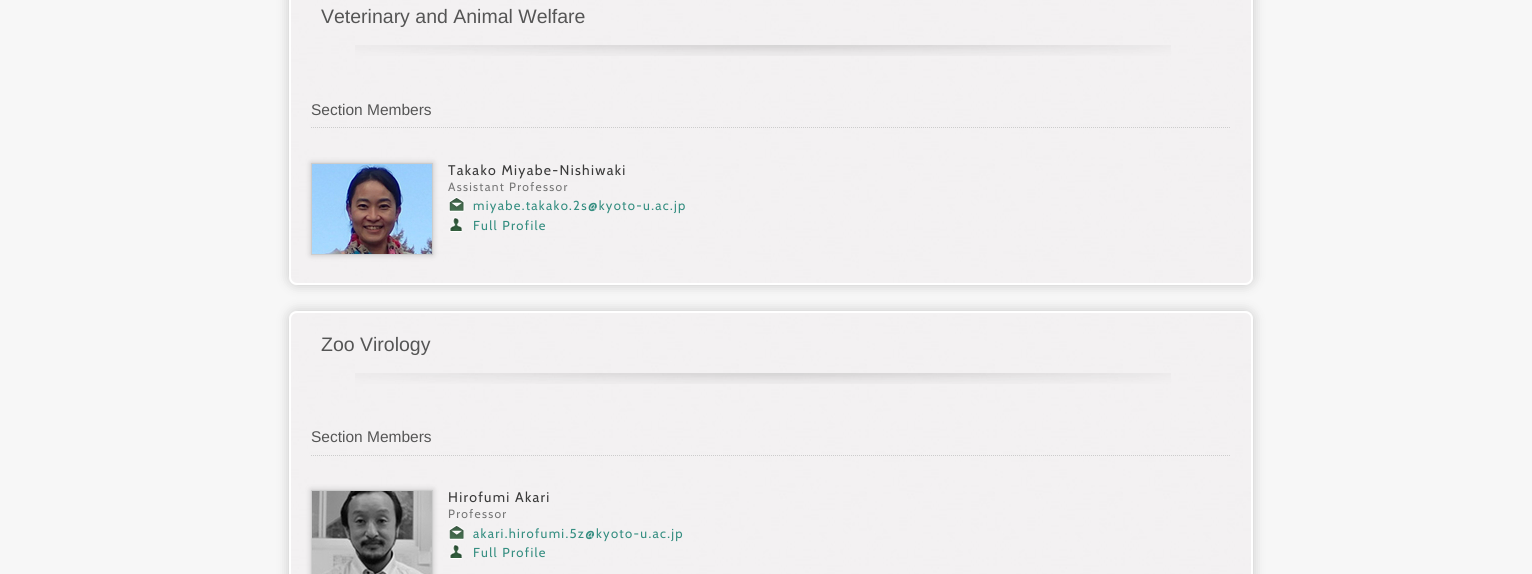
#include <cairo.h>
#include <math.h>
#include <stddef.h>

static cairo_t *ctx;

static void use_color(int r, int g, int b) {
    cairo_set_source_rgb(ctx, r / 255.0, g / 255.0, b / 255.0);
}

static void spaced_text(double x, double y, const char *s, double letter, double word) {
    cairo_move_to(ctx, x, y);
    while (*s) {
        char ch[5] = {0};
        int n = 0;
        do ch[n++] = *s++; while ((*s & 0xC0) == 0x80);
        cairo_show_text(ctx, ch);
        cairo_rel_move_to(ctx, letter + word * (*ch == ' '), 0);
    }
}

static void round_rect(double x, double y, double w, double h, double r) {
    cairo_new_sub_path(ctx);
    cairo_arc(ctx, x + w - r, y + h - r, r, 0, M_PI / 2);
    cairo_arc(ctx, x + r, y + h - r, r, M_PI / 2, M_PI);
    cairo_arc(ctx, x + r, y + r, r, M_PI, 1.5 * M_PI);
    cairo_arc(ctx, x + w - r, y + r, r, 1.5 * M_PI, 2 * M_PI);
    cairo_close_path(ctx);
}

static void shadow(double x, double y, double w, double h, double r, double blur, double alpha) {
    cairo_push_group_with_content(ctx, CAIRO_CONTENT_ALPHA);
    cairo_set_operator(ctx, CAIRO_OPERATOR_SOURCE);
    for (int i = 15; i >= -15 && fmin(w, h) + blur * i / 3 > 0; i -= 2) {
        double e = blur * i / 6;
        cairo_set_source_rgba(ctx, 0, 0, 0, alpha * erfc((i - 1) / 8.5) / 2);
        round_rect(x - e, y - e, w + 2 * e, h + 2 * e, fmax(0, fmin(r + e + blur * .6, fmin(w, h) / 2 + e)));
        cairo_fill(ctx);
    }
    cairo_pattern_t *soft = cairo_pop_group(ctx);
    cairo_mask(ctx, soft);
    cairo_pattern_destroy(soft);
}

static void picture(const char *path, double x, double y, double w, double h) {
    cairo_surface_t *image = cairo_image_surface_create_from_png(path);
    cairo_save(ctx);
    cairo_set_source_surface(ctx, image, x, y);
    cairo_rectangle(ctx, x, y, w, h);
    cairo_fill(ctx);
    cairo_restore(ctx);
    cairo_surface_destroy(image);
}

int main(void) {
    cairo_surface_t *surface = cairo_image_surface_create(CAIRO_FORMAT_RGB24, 1532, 574);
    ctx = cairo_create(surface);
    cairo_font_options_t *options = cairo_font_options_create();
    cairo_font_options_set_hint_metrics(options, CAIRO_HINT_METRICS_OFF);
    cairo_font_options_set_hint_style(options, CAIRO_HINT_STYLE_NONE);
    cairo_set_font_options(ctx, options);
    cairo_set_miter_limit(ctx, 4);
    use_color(247, 247, 247);
    cairo_paint(ctx);
    use_color(0, 0, 0);
    shadow(289, -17, 964, 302, 8, 6, 0.2);
    picture("img1.png", 289, 0, 964, 285);
    round_rect(290, -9, 962, 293, 7);
    use_color(255, 255, 255);
    cairo_stroke(ctx);
    picture("img2.png", 355, 45, 816, 11);
    cairo_select_font_face(ctx, "Liberation Sans", CAIRO_FONT_SLANT_NORMAL, CAIRO_FONT_WEIGHT_NORMAL);
    cairo_set_font_size(ctx, 19.5);
    use_color(85, 85, 85);
    cairo_move_to(ctx, 321, 23);
    cairo_show_text(ctx, "Veterinary and Animal Welfare");
    cairo_new_path(ctx);
    cairo_move_to(ctx, 311, 127.5);
    cairo_line_to(ctx, 1231, 127.5);
    use_color(204, 204, 204);
    cairo_set_line_width(ctx, 1);
    cairo_set_dash(ctx, (double[]){1, 1}, 2, 0);
    cairo_stroke(ctx);
    cairo_set_font_size(ctx, 15.5);
    use_color(85, 85, 85);
    cairo_move_to(ctx, 311, 115);
    cairo_show_text(ctx, "Section Members");
    use_color(0, 0, 0);
    shadow(311, 163, 122, 92, 0, 3, 0.2);
    cairo_rectangle(ctx, 311.5, 163.5, 121, 91);
    use_color(204, 204, 204);
    cairo_set_dash(ctx, NULL, 0, 0);
    cairo_stroke(ctx);
    picture("img3.png", 312, 164, 120, 90);
    cairo_select_font_face(ctx, "Cabin", CAIRO_FONT_SLANT_NORMAL, CAIRO_FONT_WEIGHT_NORMAL);
    cairo_set_font_size(ctx, 14);
    use_color(58, 58, 58);
    spaced_text(448, 175, "Takako Miyabe-Nishiwaki", 1.3, 0);
    cairo_set_font_size(ctx, 12);
    use_color(119, 119, 119);
    spaced_text(448, 191, "Assistant Professor", 1.3, 0);
    picture("img4.png", 449, 197, 16, 15);
    cairo_set_font_size(ctx, 13);
    use_color(53, 142, 129);
    spaced_text(473, 210, "miyabe.takako.2s@kyoto-u.ac.jp", 1.3, 0);
    picture("img5.png", 449, 217, 13, 15);
    spaced_text(473, 230, "Full Profile", 1.3, 0);
    use_color(0, 0, 0);
    shadow(289, 311, 964, 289, 8, 6, 0.2);
    picture("img6.png", 289, 311, 964, 263);
    round_rect(290, 312, 962, 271, 7);
    use_color(255, 255, 255);
    cairo_set_line_width(ctx, 2);
    cairo_stroke(ctx);
    picture("img2.png", 355, 373, 816, 11);
    cairo_select_font_face(ctx, "Liberation Sans", CAIRO_FONT_SLANT_NORMAL, CAIRO_FONT_WEIGHT_NORMAL);
    cairo_set_font_size(ctx, 19.5);
    use_color(85, 85, 85);
    cairo_move_to(ctx, 321, 351);
    cairo_show_text(ctx, "Zoo Virology");
    cairo_new_path(ctx);
    cairo_move_to(ctx, 311, 455.5);
    cairo_line_to(ctx, 1231, 455.5);
    use_color(204, 204, 204);
    cairo_set_line_width(ctx, 1);
    cairo_set_dash(ctx, (double[]){1, 1}, 2, 0);
    cairo_stroke(ctx);
    cairo_set_font_size(ctx, 15.5);
    use_color(85, 85, 85);
    cairo_move_to(ctx, 311, 442);
    cairo_show_text(ctx, "Section Members");
    use_color(0, 0, 0);
    shadow(311, 490, 122, 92, 0, 3, 0.2);
    cairo_rectangle(ctx, 311.5, 490.5, 121, 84);
    use_color(204, 204, 204);
    cairo_set_dash(ctx, NULL, 0, 0);
    cairo_stroke(ctx);
    picture("img7.png", 312, 491, 120, 83);
    cairo_select_font_face(ctx, "Cabin", CAIRO_FONT_SLANT_NORMAL, CAIRO_FONT_WEIGHT_NORMAL);
    cairo_set_font_size(ctx, 14);
    use_color(58, 58, 58);
    spaced_text(448, 502, "Hirofumi Akari", 1.3, 0);
    cairo_set_font_size(ctx, 12);
    use_color(119, 119, 119);
    spaced_text(448, 518, "Professor", 1.3, 0);
    picture("img8.png", 449, 525, 15, 15);
    cairo_set_font_size(ctx, 13);
    use_color(53, 142, 129);
    spaced_text(473, 538, "akari.hirofumi.5z@kyoto-u.ac.jp", 1.3, 0);
    picture("img9.png", 449, 544, 13, 15);
    spaced_text(473, 557, "Full Profile", 1.3, 0);
    cairo_surface_write_to_png(surface, "result.png");
    cairo_font_options_destroy(options);
    cairo_destroy(ctx);
    cairo_surface_destroy(surface);
    return 0;
}
